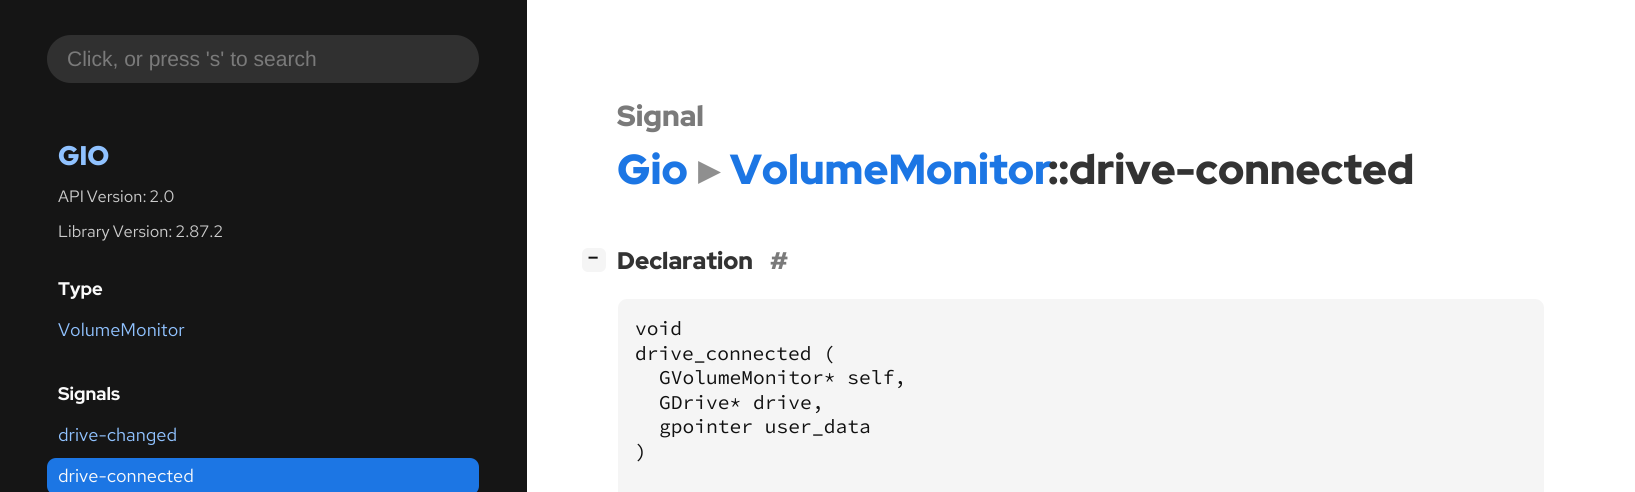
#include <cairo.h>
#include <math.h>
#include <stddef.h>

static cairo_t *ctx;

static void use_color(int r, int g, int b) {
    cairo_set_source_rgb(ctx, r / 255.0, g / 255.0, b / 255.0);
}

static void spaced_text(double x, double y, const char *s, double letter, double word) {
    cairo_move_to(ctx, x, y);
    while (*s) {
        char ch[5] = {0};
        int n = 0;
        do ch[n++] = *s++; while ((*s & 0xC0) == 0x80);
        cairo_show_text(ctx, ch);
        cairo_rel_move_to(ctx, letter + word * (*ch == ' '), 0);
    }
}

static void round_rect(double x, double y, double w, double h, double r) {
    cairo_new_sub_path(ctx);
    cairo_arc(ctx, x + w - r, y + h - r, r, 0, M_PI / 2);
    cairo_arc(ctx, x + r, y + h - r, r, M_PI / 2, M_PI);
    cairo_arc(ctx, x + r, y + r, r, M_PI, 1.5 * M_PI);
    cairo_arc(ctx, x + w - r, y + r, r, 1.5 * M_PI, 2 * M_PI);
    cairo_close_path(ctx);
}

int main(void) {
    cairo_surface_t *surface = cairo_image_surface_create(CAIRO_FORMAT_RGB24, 1635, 492);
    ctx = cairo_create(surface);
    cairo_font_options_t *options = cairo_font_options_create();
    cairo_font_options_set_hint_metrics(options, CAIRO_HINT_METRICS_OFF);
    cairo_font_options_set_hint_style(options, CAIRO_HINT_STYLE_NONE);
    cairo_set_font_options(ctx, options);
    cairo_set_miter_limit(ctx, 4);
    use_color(255, 255, 255);
    cairo_paint(ctx);
    use_color(21, 21, 21);
    cairo_rectangle(ctx, 0, 0, 527, 492);
    cairo_fill(ctx);
    use_color(48, 48, 48);
    round_rect(47, 35, 432, 48, 24);
    cairo_fill(ctx);
    cairo_select_font_face(ctx, "Liberation Sans", CAIRO_FONT_SLANT_NORMAL, CAIRO_FONT_WEIGHT_NORMAL);
    cairo_set_font_size(ctx, 21);
    use_color(122, 122, 122);
    cairo_move_to(ctx, 67, 66);
    cairo_show_text(ctx, "Click, or press 's' to search");
    cairo_select_font_face(ctx, "Red Hat Display Black", CAIRO_FONT_SLANT_NORMAL, CAIRO_FONT_WEIGHT_NORMAL);
    cairo_set_font_size(ctx, 27);
    use_color(144, 194, 255);
    cairo_move_to(ctx, 58, 165);
    cairo_show_text(ctx, "GIO");
    cairo_select_font_face(ctx, "Red Hat Text", CAIRO_FONT_SLANT_NORMAL, CAIRO_FONT_WEIGHT_NORMAL);
    cairo_set_font_size(ctx, 16.5);
    use_color(204, 204, 204);
    spaced_text(58, 202, "API Version: 2.0", 0, -1);
    spaced_text(58, 237, "Library Version: 2.87.2", 0, -1);
    cairo_select_font_face(ctx, "Red Hat Display ExtraBold", CAIRO_FONT_SLANT_NORMAL, CAIRO_FONT_WEIGHT_NORMAL);
    cairo_set_font_size(ctx, 18.25);
    use_color(250, 250, 250);
    cairo_move_to(ctx, 58, 295);
    cairo_show_text(ctx, "Type");
    cairo_select_font_face(ctx, "Red Hat Text", CAIRO_FONT_SLANT_NORMAL, CAIRO_FONT_WEIGHT_NORMAL);
    use_color(144, 194, 255);
    cairo_move_to(ctx, 58, 336);
    cairo_show_text(ctx, "VolumeMonitor");
    cairo_select_font_face(ctx, "Red Hat Display ExtraBold", CAIRO_FONT_SLANT_NORMAL, CAIRO_FONT_WEIGHT_NORMAL);
    use_color(250, 250, 250);
    cairo_move_to(ctx, 58, 400);
    cairo_show_text(ctx, "Signals");
    cairo_select_font_face(ctx, "Red Hat Text", CAIRO_FONT_SLANT_NORMAL, CAIRO_FONT_WEIGHT_NORMAL);
    use_color(144, 194, 255);
    cairo_move_to(ctx, 58, 441);
    cairo_show_text(ctx, "drive-changed");
    use_color(28, 118, 228);
    round_rect(47, 458, 432, 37, 9);
    cairo_fill(ctx);
    use_color(250, 250, 250);
    cairo_move_to(ctx, 58, 482);
    cairo_show_text(ctx, "drive-connected");
    cairo_select_font_face(ctx, "Red Hat Display Black", CAIRO_FONT_SLANT_NORMAL, CAIRO_FONT_WEIGHT_NORMAL);
    cairo_set_font_size(ctx, 29);
    use_color(122, 122, 122);
    cairo_move_to(ctx, 617, 126);
    cairo_show_text(ctx, "Signal");
    cairo_set_font_size(ctx, 42);
    use_color(28, 118, 228);
    cairo_move_to(ctx, 617, 184);
    cairo_show_text(ctx, "Gio");
    cairo_select_font_face(ctx, "DejaVu Sans", CAIRO_FONT_SLANT_NORMAL, CAIRO_FONT_WEIGHT_BOLD);
    use_color(143, 143, 143);
    cairo_move_to(ctx, 698, 184);
    cairo_show_text(ctx, "▸");
    cairo_select_font_face(ctx, "Red Hat Display Black", CAIRO_FONT_SLANT_NORMAL, CAIRO_FONT_WEIGHT_NORMAL);
    use_color(28, 118, 228);
    cairo_move_to(ctx, 730, 184);
    cairo_show_text(ctx, "VolumeMonitor");
    use_color(51, 51, 51);
    cairo_move_to(ctx, 1048, 184);
    cairo_show_text(ctx, "::drive-connected");
    use_color(245, 245, 245);
    round_rect(582, 248, 24, 24, 6);
    cairo_fill(ctx);
    cairo_select_font_face(ctx, "DejaVu Sans Mono", CAIRO_FONT_SLANT_NORMAL, CAIRO_FONT_WEIGHT_BOLD);
    cairo_set_font_size(ctx, 17);
    use_color(17, 17, 17);
    cairo_move_to(ctx, 588, 263);
    cairo_show_text(ctx, "−");
    cairo_select_font_face(ctx, "Red Hat Display Black", CAIRO_FONT_SLANT_NORMAL, CAIRO_FONT_WEIGHT_NORMAL);
    cairo_set_font_size(ctx, 24);
    use_color(51, 51, 51);
    cairo_move_to(ctx, 617, 269);
    cairo_show_text(ctx, "Declaration");
    use_color(122, 122, 122);
    cairo_move_to(ctx, 770, 269);
    cairo_show_text(ctx, "#");
    use_color(245, 245, 245);
    round_rect(618, 299, 926, 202, 9);
    cairo_fill(ctx);
    cairo_select_font_face(ctx, "Source Code Pro", CAIRO_FONT_SLANT_NORMAL, CAIRO_FONT_WEIGHT_NORMAL);
    cairo_set_font_size(ctx, 19.6);
    use_color(17, 17, 17);
    cairo_move_to(ctx, 635, 335);
    cairo_show_text(ctx, "void");
    cairo_move_to(ctx, 635, 360);
    cairo_show_text(ctx, "drive_connected (");
    cairo_move_to(ctx, 659, 384);
    cairo_show_text(ctx, "GVolumeMonitor* self,");
    cairo_move_to(ctx, 659, 409);
    cairo_show_text(ctx, "GDrive* drive,");
    cairo_move_to(ctx, 659, 433);
    cairo_show_text(ctx, "gpointer user_data");
    cairo_move_to(ctx, 635, 458);
    cairo_show_text(ctx, ")");
    cairo_surface_write_to_png(surface, "result.png");
    cairo_font_options_destroy(options);
    cairo_destroy(ctx);
    cairo_surface_destroy(surface);
    return 0;
}
